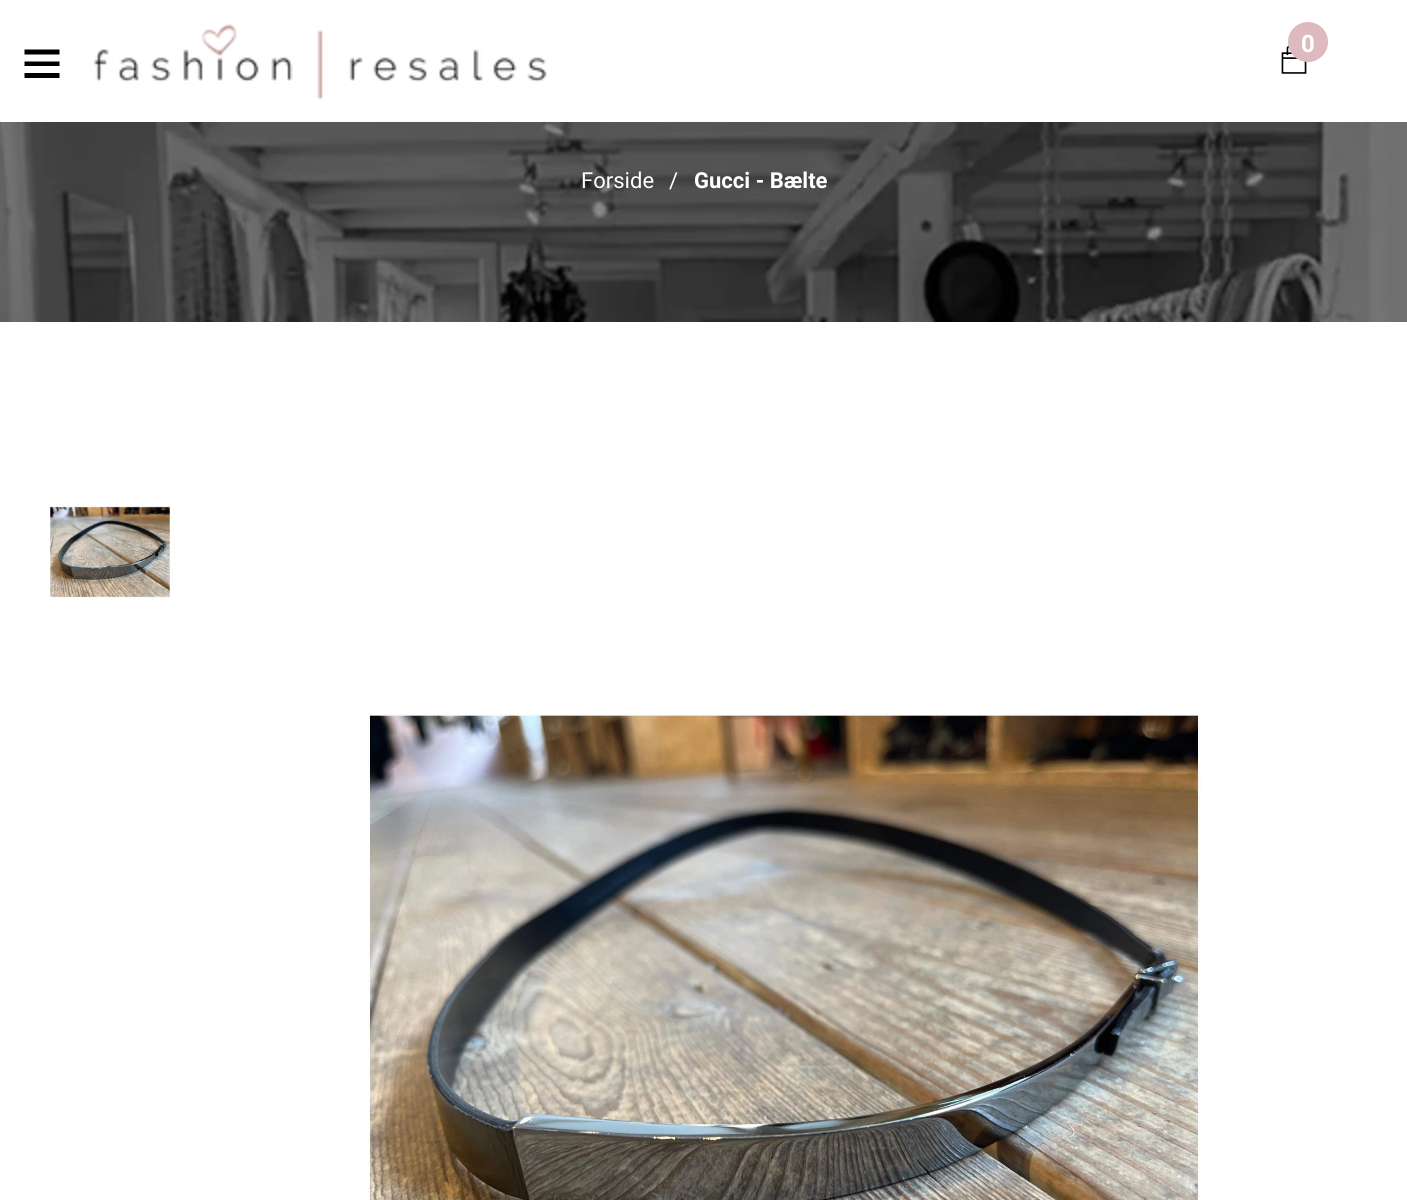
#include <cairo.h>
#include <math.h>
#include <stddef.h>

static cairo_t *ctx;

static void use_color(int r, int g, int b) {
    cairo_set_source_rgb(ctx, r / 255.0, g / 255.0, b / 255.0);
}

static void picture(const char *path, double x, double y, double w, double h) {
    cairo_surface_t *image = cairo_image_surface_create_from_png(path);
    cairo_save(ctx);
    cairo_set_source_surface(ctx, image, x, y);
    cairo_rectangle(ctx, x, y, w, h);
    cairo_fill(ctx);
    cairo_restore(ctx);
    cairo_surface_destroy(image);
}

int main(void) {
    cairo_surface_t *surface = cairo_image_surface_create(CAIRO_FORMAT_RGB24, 1407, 1200);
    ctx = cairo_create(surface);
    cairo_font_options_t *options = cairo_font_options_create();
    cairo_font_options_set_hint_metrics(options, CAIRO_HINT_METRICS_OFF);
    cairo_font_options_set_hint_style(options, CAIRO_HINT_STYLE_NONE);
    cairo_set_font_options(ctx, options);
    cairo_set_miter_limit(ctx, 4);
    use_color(255, 255, 255);
    cairo_paint(ctx);
    picture("img1.png", 94, 23, 453, 77);
    picture("img2.png", 1281, 45, 26, 29);
    use_color(222, 185, 189);
    cairo_arc(ctx, 1308, 42, 20, 0, 2 * M_PI);
    cairo_fill(ctx);
    cairo_select_font_face(ctx, "Heebo", CAIRO_FONT_SLANT_NORMAL, CAIRO_FONT_WEIGHT_BOLD);
    cairo_set_font_size(ctx, 24);
    use_color(255, 255, 255);
    cairo_move_to(ctx, 1301, 52);
    cairo_show_text(ctx, "0");
    use_color(0, 0, 0);
    cairo_new_path(ctx);
    cairo_move_to(ctx, 59.5, 49.5);
    cairo_line_to(ctx, 59.5, 54.5);
    cairo_line_to(ctx, 24.5, 54.5);
    cairo_line_to(ctx, 24.5, 49.5);
    cairo_close_path(ctx);
    cairo_move_to(ctx, 24.5, 66);
    cairo_line_to(ctx, 59.5, 66);
    cairo_line_to(ctx, 59.5, 61.5);
    cairo_line_to(ctx, 24.5, 61.5);
    cairo_close_path(ctx);
    cairo_move_to(ctx, 24.5, 78);
    cairo_line_to(ctx, 59.5, 78);
    cairo_line_to(ctx, 59.5, 73);
    cairo_line_to(ctx, 24.5, 73);
    cairo_close_path(ctx);
    cairo_fill(ctx);
    picture("img3.png", 0, 122, 1407, 200);
    cairo_select_font_face(ctx, "Heebo", CAIRO_FONT_SLANT_NORMAL, CAIRO_FONT_WEIGHT_NORMAL);
    cairo_set_font_size(ctx, 22);
    use_color(255, 255, 255);
    cairo_move_to(ctx, 581, 188);
    cairo_show_text(ctx, "Forside");
    cairo_move_to(ctx, 669, 188);
    cairo_show_text(ctx, "/");
    cairo_select_font_face(ctx, "Heebo", CAIRO_FONT_SLANT_NORMAL, CAIRO_FONT_WEIGHT_BOLD);
    cairo_move_to(ctx, 694, 188);
    cairo_show_text(ctx, "Gucci - Bælte");
    picture("img4.png", 49, 505, 125, 93);
    picture("img5.png", 368, 713, 834, 487);
    cairo_surface_write_to_png(surface, "result.png");
    cairo_font_options_destroy(options);
    cairo_destroy(ctx);
    cairo_surface_destroy(surface);
    return 0;
}
